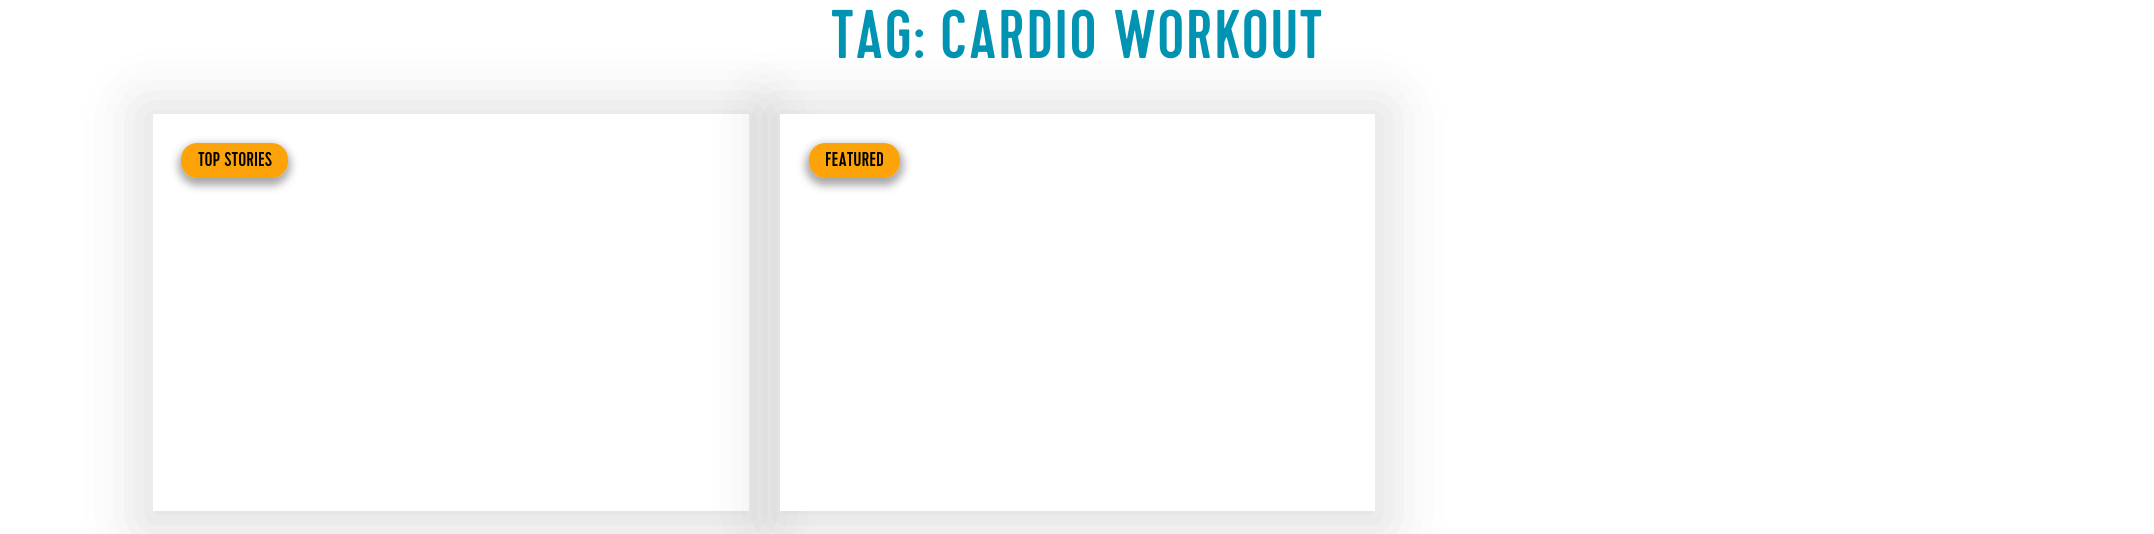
#include <cairo.h>
#include <math.h>
#include <stddef.h>

static cairo_t *ctx;

static void use_color(int r, int g, int b) {
    cairo_set_source_rgb(ctx, r / 255.0, g / 255.0, b / 255.0);
}

static void spaced_text(double x, double y, const char *s, double letter, double word) {
    cairo_move_to(ctx, x, y);
    while (*s) {
        char ch[5] = {0};
        int n = 0;
        do ch[n++] = *s++; while ((*s & 0xC0) == 0x80);
        cairo_show_text(ctx, ch);
        cairo_rel_move_to(ctx, letter + word * (*ch == ' '), 0);
    }
}

static void round_rect(double x, double y, double w, double h, double r) {
    cairo_new_sub_path(ctx);
    cairo_arc(ctx, x + w - r, y + h - r, r, 0, M_PI / 2);
    cairo_arc(ctx, x + r, y + h - r, r, M_PI / 2, M_PI);
    cairo_arc(ctx, x + r, y + r, r, M_PI, 1.5 * M_PI);
    cairo_arc(ctx, x + w - r, y + r, r, 1.5 * M_PI, 2 * M_PI);
    cairo_close_path(ctx);
}

static void shadow(double x, double y, double w, double h, double r, double blur, double alpha) {
    cairo_push_group_with_content(ctx, CAIRO_CONTENT_ALPHA);
    cairo_set_operator(ctx, CAIRO_OPERATOR_SOURCE);
    for (int i = 15; i >= -15 && fmin(w, h) + blur * i / 3 > 0; i -= 2) {
        double e = blur * i / 6;
        cairo_set_source_rgba(ctx, 0, 0, 0, alpha * erfc((i - 1) / 8.5) / 2);
        round_rect(x - e, y - e, w + 2 * e, h + 2 * e, fmax(0, fmin(r + e + blur * .6, fmin(w, h) / 2 + e)));
        cairo_fill(ctx);
    }
    cairo_pattern_t *soft = cairo_pop_group(ctx);
    cairo_mask(ctx, soft);
    cairo_pattern_destroy(soft);
}

int main(void) {
    cairo_surface_t *surface = cairo_image_surface_create(CAIRO_FORMAT_RGB24, 2154, 534);
    ctx = cairo_create(surface);
    cairo_font_options_t *options = cairo_font_options_create();
    cairo_font_options_set_hint_metrics(options, CAIRO_HINT_METRICS_OFF);
    cairo_font_options_set_hint_style(options, CAIRO_HINT_STYLE_NONE);
    cairo_set_font_options(ctx, options);
    cairo_set_miter_limit(ctx, 4);
    use_color(255, 255, 255);
    cairo_paint(ctx);
    cairo_select_font_face(ctx, "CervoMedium", CAIRO_FONT_SLANT_NORMAL, CAIRO_FONT_WEIGHT_NORMAL);
    cairo_set_font_size(ctx, 68.75);
    use_color(0, 147, 178);
    spaced_text(831, 58, "TAG: CARDIO WORKOUT", 1.25, 0);
    use_color(0, 0, 0);
    shadow(139, 105, 624, 425, 0, 30, 0.13);
    use_color(255, 255, 255);
    cairo_rectangle(ctx, 153, 114, 596, 397);
    cairo_fill(ctx);
    use_color(251, 163, 8);
    round_rect(181, 143, 107, 35, 16);
    cairo_fill(ctx);
    cairo_save(ctx);
    cairo_set_fill_rule(ctx, CAIRO_FILL_RULE_EVEN_ODD);
    cairo_new_path(ctx);
    cairo_move_to(ctx, 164, 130);
    cairo_line_to(ctx, 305, 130);
    cairo_line_to(ctx, 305, 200);
    cairo_line_to(ctx, 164, 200);
    cairo_close_path(ctx);
    cairo_move_to(ctx, 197, 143);
    cairo_line_to(ctx, 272, 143);
    cairo_curve_to(ctx, 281, 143, 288, 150, 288, 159);
    cairo_line_to(ctx, 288, 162);
    cairo_curve_to(ctx, 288, 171, 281, 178, 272, 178);
    cairo_line_to(ctx, 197, 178);
    cairo_curve_to(ctx, 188, 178, 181, 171, 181, 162);
    cairo_line_to(ctx, 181, 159);
    cairo_curve_to(ctx, 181, 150, 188, 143, 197, 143);
    cairo_close_path(ctx);
    cairo_clip(ctx);
    use_color(0, 0, 0);
    shadow(179, 145, 111, 40, 19, 4.5, 0.36);
    cairo_restore(ctx);
    cairo_set_font_size(ctx, 20);
    use_color(0, 0, 0);
    cairo_move_to(ctx, 198, 166);
    cairo_show_text(ctx, "TOP STORIES");
    use_color(0, 0, 0);
    shadow(766, 105, 623, 425, 0, 30, 0.13);
    use_color(255, 255, 255);
    cairo_rectangle(ctx, 780, 114, 595, 397);
    cairo_fill(ctx);
    use_color(251, 163, 8);
    round_rect(809, 143, 91, 35, 16);
    cairo_fill(ctx);
    cairo_save(ctx);
    cairo_set_fill_rule(ctx, CAIRO_FILL_RULE_EVEN_ODD);
    cairo_new_path(ctx);
    cairo_move_to(ctx, 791, 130);
    cairo_line_to(ctx, 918, 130);
    cairo_line_to(ctx, 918, 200);
    cairo_line_to(ctx, 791, 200);
    cairo_close_path(ctx);
    cairo_move_to(ctx, 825, 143);
    cairo_line_to(ctx, 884, 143);
    cairo_curve_to(ctx, 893, 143, 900, 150, 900, 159);
    cairo_line_to(ctx, 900, 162);
    cairo_curve_to(ctx, 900, 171, 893, 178, 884, 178);
    cairo_line_to(ctx, 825, 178);
    cairo_curve_to(ctx, 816, 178, 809, 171, 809, 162);
    cairo_line_to(ctx, 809, 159);
    cairo_curve_to(ctx, 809, 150, 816, 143, 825, 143);
    cairo_close_path(ctx);
    cairo_clip(ctx);
    use_color(0, 0, 0);
    shadow(806, 145, 97, 40, 19, 4.5, 0.36);
    cairo_restore(ctx);
    use_color(0, 0, 0);
    cairo_move_to(ctx, 825, 166);
    cairo_show_text(ctx, "FEATURED");
    cairo_surface_write_to_png(surface, "result.png");
    cairo_font_options_destroy(options);
    cairo_destroy(ctx);
    cairo_surface_destroy(surface);
    return 0;
}
